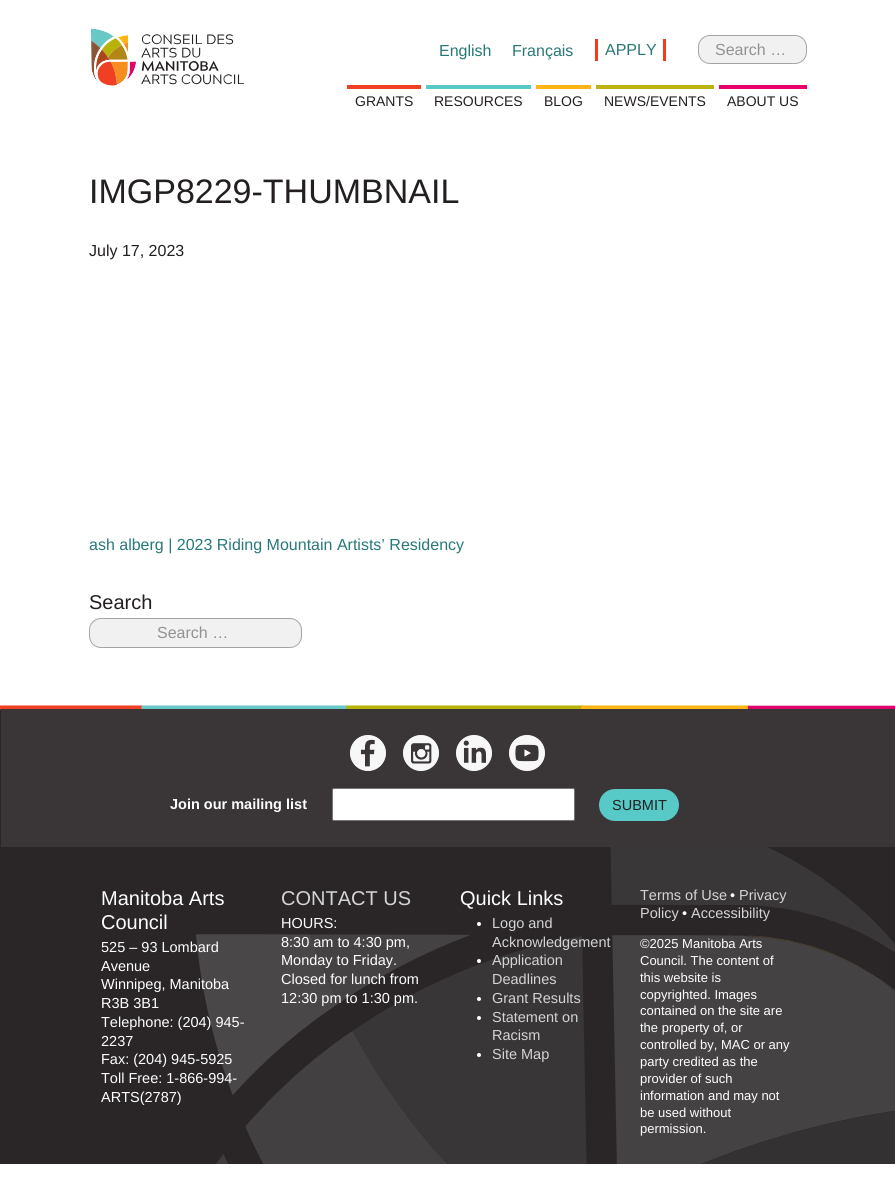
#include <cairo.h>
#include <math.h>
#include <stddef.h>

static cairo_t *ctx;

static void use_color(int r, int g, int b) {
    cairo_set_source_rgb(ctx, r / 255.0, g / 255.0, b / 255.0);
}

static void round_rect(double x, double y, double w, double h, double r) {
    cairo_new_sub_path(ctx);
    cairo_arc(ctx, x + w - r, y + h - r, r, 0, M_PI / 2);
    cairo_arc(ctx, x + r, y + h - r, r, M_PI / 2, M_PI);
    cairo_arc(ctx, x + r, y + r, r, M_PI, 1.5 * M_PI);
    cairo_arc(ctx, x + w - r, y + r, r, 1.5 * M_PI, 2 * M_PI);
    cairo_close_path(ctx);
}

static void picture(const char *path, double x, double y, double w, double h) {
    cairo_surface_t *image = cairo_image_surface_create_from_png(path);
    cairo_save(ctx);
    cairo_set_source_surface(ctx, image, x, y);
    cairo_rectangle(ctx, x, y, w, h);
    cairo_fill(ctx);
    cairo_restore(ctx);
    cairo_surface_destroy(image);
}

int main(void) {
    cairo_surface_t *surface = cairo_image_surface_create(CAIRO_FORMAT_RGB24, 895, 1199);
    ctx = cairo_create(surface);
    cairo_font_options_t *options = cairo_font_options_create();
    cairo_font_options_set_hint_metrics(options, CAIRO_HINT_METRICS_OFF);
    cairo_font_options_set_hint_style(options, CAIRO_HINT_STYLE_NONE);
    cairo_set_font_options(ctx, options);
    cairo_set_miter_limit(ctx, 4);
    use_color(255, 255, 255);
    cairo_paint(ctx);
    picture("img1.png", 91, 28, 153, 58);
    cairo_select_font_face(ctx, "Liberation Sans", CAIRO_FONT_SLANT_NORMAL, CAIRO_FONT_WEIGHT_NORMAL);
    cairo_set_font_size(ctx, 16);
    use_color(39, 121, 119);
    cairo_move_to(ctx, 439, 56);
    cairo_show_text(ctx, "English");
    cairo_move_to(ctx, 512, 56);
    cairo_show_text(ctx, "Français");
    use_color(248, 57, 30);
    cairo_rectangle(ctx, 663, 39, 3, 22);
    cairo_fill(ctx);
    cairo_rectangle(ctx, 595, 39, 3, 22);
    cairo_fill(ctx);
    use_color(39, 121, 119);
    cairo_move_to(ctx, 605, 55);
    cairo_show_text(ctx, "APPLY");
    use_color(242, 241, 242);
    round_rect(698.5, 35.5, 108, 28, 11.5);
    cairo_fill_preserve(ctx);
    use_color(165, 165, 165);
    cairo_set_line_width(ctx, 1);
    cairo_stroke(ctx);
    use_color(147, 145, 146);
    cairo_move_to(ctx, 715, 55);
    cairo_show_text(ctx, "Search …");
    use_color(239, 64, 35);
    cairo_rectangle(ctx, 347, 85, 74, 4);
    cairo_fill(ctx);
    cairo_set_font_size(ctx, 14);
    use_color(35, 31, 32);
    cairo_move_to(ctx, 355, 106);
    cairo_show_text(ctx, "GRANTS");
    use_color(87, 201, 198);
    cairo_rectangle(ctx, 426, 85, 105, 4);
    cairo_fill(ctx);
    use_color(35, 31, 32);
    cairo_move_to(ctx, 434, 106);
    cairo_show_text(ctx, "RESOURCES");
    use_color(255, 180, 21);
    cairo_rectangle(ctx, 536, 85, 55, 4);
    cairo_fill(ctx);
    use_color(35, 31, 32);
    cairo_move_to(ctx, 544, 106);
    cairo_show_text(ctx, "BLOG");
    use_color(188, 179, 15);
    cairo_rectangle(ctx, 596, 85, 118, 4);
    cairo_fill(ctx);
    use_color(35, 31, 32);
    cairo_move_to(ctx, 604, 106);
    cairo_show_text(ctx, "NEWS/EVENTS");
    use_color(231, 0, 105);
    cairo_rectangle(ctx, 719, 85, 88, 4);
    cairo_fill(ctx);
    use_color(35, 31, 32);
    cairo_move_to(ctx, 727, 106);
    cairo_show_text(ctx, "ABOUT US");
    cairo_set_font_size(ctx, 34);
    cairo_move_to(ctx, 89, 203);
    cairo_show_text(ctx, "IMGP8229-THUMBNAIL");
    cairo_set_font_size(ctx, 16);
    cairo_move_to(ctx, 89, 256);
    cairo_show_text(ctx, "July 17, 2023");
    use_color(39, 121, 119);
    cairo_move_to(ctx, 89, 550);
    cairo_show_text(ctx, "ash alberg | 2023 Riding Mountain Artists’ Residency");
    cairo_set_font_size(ctx, 20);
    use_color(35, 31, 32);
    cairo_move_to(ctx, 89, 609);
    cairo_show_text(ctx, "Search");
    use_color(242, 241, 242);
    round_rect(89.5, 618.5, 212, 29, 11.5);
    cairo_fill_preserve(ctx);
    use_color(165, 165, 165);
    cairo_stroke(ctx);
    cairo_set_font_size(ctx, 16);
    use_color(147, 145, 146);
    cairo_move_to(ctx, 157, 638);
    cairo_show_text(ctx, "Search …");
    use_color(42, 38, 39);
    cairo_rectangle(ctx, 0, 709, 895, 455);
    cairo_fill(ctx);
    picture("img2.png", 0, 705, 895, 5);
    picture("img3.png", 196, 847, 699, 317);
    use_color(58, 53, 55);
    cairo_rectangle(ctx, 1, 709, 894, 138);
    cairo_fill(ctx);
    picture("img4.png", 350, 735, 36, 36);
    picture("img5.png", 350, 735, 36, 36);
    picture("img6.png", 403, 735, 36, 36);
    picture("img7.png", 403, 735, 36, 36);
    picture("img8.png", 456, 735, 36, 36);
    picture("img9.png", 456, 735, 36, 36);
    picture("img10.png", 509, 735, 36, 36);
    picture("img11.png", 509, 735, 36, 36);
    cairo_select_font_face(ctx, "Liberation Sans", CAIRO_FONT_SLANT_NORMAL, CAIRO_FONT_WEIGHT_BOLD);
    cairo_set_font_size(ctx, 14.5);
    use_color(255, 255, 255);
    cairo_move_to(ctx, 170, 809);
    cairo_show_text(ctx, "Join our mailing list");
    round_rect(332.5, 788.5, 242, 32, 1.5);
    cairo_fill_preserve(ctx);
    use_color(118, 118, 118);
    cairo_stroke(ctx);
    use_color(87, 201, 198);
    round_rect(599, 789, 80, 32, 16);
    cairo_fill(ctx);
    cairo_select_font_face(ctx, "Liberation Sans", CAIRO_FONT_SLANT_NORMAL, CAIRO_FONT_WEIGHT_NORMAL);
    use_color(35, 31, 32);
    cairo_move_to(ctx, 612, 810);
    cairo_show_text(ctx, "SUBMIT");
    cairo_set_font_size(ctx, 20);
    use_color(255, 255, 255);
    cairo_move_to(ctx, 101, 905);
    cairo_show_text(ctx, "Manitoba Arts");
    cairo_move_to(ctx, 101, 929);
    cairo_show_text(ctx, "Council");
    cairo_set_font_size(ctx, 14.5);
    cairo_move_to(ctx, 101, 952);
    cairo_show_text(ctx, "525 – 93 Lombard");
    cairo_move_to(ctx, 101, 971);
    cairo_show_text(ctx, "Avenue");
    cairo_move_to(ctx, 101, 989);
    cairo_show_text(ctx, "Winnipeg, Manitoba");
    cairo_move_to(ctx, 101, 1008);
    cairo_show_text(ctx, "R3B 3B1");
    cairo_move_to(ctx, 101, 1027);
    cairo_show_text(ctx, "Telephone: (204) 945-");
    cairo_move_to(ctx, 101, 1046);
    cairo_show_text(ctx, "2237");
    cairo_move_to(ctx, 101, 1064);
    cairo_show_text(ctx, "Fax: (204) 945-5925");
    cairo_move_to(ctx, 101, 1083);
    cairo_show_text(ctx, "Toll Free: 1-866-994-");
    cairo_move_to(ctx, 101, 1102);
    cairo_show_text(ctx, "ARTS(2787)");
    cairo_set_font_size(ctx, 20);
    use_color(212, 212, 212);
    cairo_move_to(ctx, 281, 905);
    cairo_show_text(ctx, "CONTACT US");
    cairo_set_font_size(ctx, 14.5);
    use_color(255, 255, 255);
    cairo_move_to(ctx, 281, 928);
    cairo_show_text(ctx, "HOURS:");
    cairo_move_to(ctx, 281, 947);
    cairo_show_text(ctx, "8:30 am to 4:30 pm,");
    cairo_move_to(ctx, 281, 965);
    cairo_show_text(ctx, "Monday to Friday.");
    cairo_move_to(ctx, 281, 984);
    cairo_show_text(ctx, "Closed for lunch from");
    cairo_move_to(ctx, 281, 1003);
    cairo_show_text(ctx, "12:30 pm to 1:30 pm.");
    cairo_set_font_size(ctx, 20);
    cairo_move_to(ctx, 460, 905);
    cairo_show_text(ctx, "Quick Links");
    cairo_new_path(ctx);
    cairo_arc(ctx, 479, 924, 2, 0, 2 * M_PI);
    cairo_fill(ctx);
    cairo_set_font_size(ctx, 14.5);
    use_color(212, 212, 212);
    cairo_move_to(ctx, 492, 928);
    cairo_show_text(ctx, "Logo and");
    cairo_move_to(ctx, 492, 947);
    cairo_show_text(ctx, "Acknowledgement");
    use_color(255, 255, 255);
    cairo_new_path(ctx);
    cairo_arc(ctx, 479, 961, 2, 0, 2 * M_PI);
    cairo_fill(ctx);
    use_color(212, 212, 212);
    cairo_move_to(ctx, 492, 965);
    cairo_show_text(ctx, "Application");
    cairo_move_to(ctx, 492, 984);
    cairo_show_text(ctx, "Deadlines");
    use_color(255, 255, 255);
    cairo_new_path(ctx);
    cairo_arc(ctx, 479, 999, 2, 0, 2 * M_PI);
    cairo_fill(ctx);
    use_color(212, 212, 212);
    cairo_move_to(ctx, 492, 1003);
    cairo_show_text(ctx, "Grant Results");
    use_color(255, 255, 255);
    cairo_new_path(ctx);
    cairo_arc(ctx, 479, 1018, 2, 0, 2 * M_PI);
    cairo_fill(ctx);
    use_color(212, 212, 212);
    cairo_move_to(ctx, 492, 1022);
    cairo_show_text(ctx, "Statement on");
    cairo_move_to(ctx, 492, 1040);
    cairo_show_text(ctx, "Racism");
    use_color(255, 255, 255);
    cairo_new_path(ctx);
    cairo_arc(ctx, 479, 1055, 2, 0, 2 * M_PI);
    cairo_fill(ctx);
    use_color(212, 212, 212);
    cairo_move_to(ctx, 492, 1059);
    cairo_show_text(ctx, "Site Map");
    cairo_move_to(ctx, 640, 900);
    cairo_show_text(ctx, "Terms of Use");
    use_color(255, 255, 255);
    cairo_move_to(ctx, 730, 900);
    cairo_show_text(ctx, "•");
    use_color(212, 212, 212);
    cairo_move_to(ctx, 739, 900);
    cairo_show_text(ctx, "Privacy");
    cairo_move_to(ctx, 640, 918);
    cairo_show_text(ctx, "Policy");
    use_color(255, 255, 255);
    cairo_move_to(ctx, 682, 918);
    cairo_show_text(ctx, "•");
    use_color(212, 212, 212);
    cairo_move_to(ctx, 691, 918);
    cairo_show_text(ctx, "Accessibility");
    cairo_set_font_size(ctx, 13);
    use_color(255, 255, 255);
    cairo_move_to(ctx, 640, 948);
    cairo_show_text(ctx, "©2025 Manitoba Arts");
    cairo_move_to(ctx, 640, 965);
    cairo_show_text(ctx, "Council. The content of");
    cairo_move_to(ctx, 640, 982);
    cairo_show_text(ctx, "this website is");
    cairo_move_to(ctx, 640, 999);
    cairo_show_text(ctx, "copyrighted. Images");
    cairo_move_to(ctx, 640, 1015);
    cairo_show_text(ctx, "contained on the site are");
    cairo_move_to(ctx, 640, 1032);
    cairo_show_text(ctx, "the property of, or");
    cairo_move_to(ctx, 640, 1049);
    cairo_show_text(ctx, "controlled by, MAC or any");
    cairo_move_to(ctx, 640, 1066);
    cairo_show_text(ctx, "party credited as the");
    cairo_move_to(ctx, 640, 1083);
    cairo_show_text(ctx, "provider of such");
    cairo_move_to(ctx, 640, 1100);
    cairo_show_text(ctx, "information and may not");
    cairo_move_to(ctx, 640, 1117);
    cairo_show_text(ctx, "be used without");
    cairo_move_to(ctx, 640, 1133);
    cairo_show_text(ctx, "permission.");
    cairo_surface_write_to_png(surface, "result.png");
    cairo_font_options_destroy(options);
    cairo_destroy(ctx);
    cairo_surface_destroy(surface);
    return 0;
}
